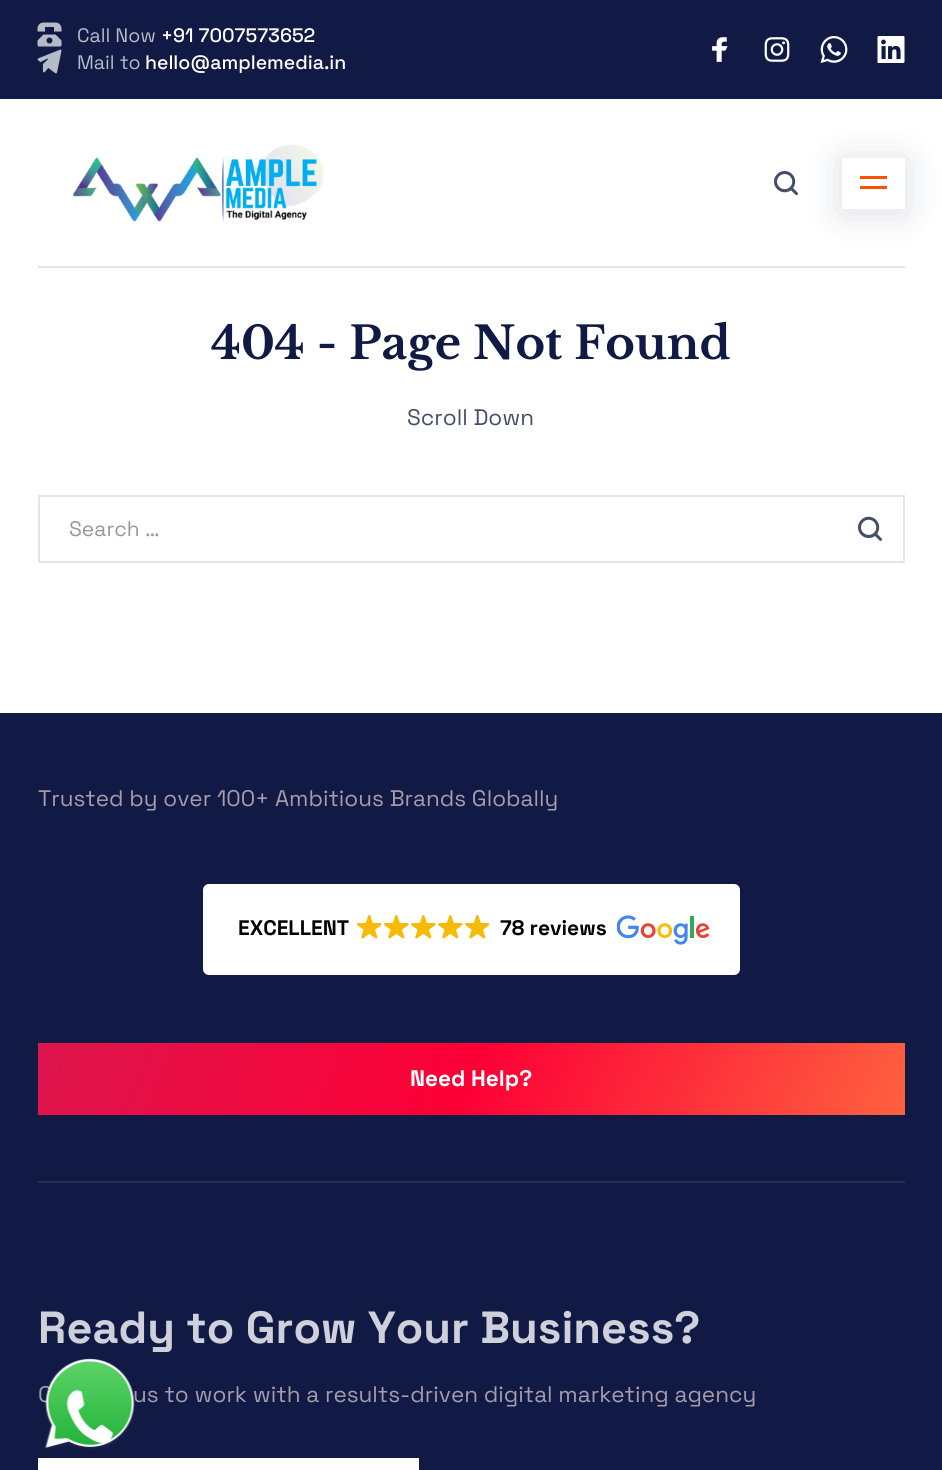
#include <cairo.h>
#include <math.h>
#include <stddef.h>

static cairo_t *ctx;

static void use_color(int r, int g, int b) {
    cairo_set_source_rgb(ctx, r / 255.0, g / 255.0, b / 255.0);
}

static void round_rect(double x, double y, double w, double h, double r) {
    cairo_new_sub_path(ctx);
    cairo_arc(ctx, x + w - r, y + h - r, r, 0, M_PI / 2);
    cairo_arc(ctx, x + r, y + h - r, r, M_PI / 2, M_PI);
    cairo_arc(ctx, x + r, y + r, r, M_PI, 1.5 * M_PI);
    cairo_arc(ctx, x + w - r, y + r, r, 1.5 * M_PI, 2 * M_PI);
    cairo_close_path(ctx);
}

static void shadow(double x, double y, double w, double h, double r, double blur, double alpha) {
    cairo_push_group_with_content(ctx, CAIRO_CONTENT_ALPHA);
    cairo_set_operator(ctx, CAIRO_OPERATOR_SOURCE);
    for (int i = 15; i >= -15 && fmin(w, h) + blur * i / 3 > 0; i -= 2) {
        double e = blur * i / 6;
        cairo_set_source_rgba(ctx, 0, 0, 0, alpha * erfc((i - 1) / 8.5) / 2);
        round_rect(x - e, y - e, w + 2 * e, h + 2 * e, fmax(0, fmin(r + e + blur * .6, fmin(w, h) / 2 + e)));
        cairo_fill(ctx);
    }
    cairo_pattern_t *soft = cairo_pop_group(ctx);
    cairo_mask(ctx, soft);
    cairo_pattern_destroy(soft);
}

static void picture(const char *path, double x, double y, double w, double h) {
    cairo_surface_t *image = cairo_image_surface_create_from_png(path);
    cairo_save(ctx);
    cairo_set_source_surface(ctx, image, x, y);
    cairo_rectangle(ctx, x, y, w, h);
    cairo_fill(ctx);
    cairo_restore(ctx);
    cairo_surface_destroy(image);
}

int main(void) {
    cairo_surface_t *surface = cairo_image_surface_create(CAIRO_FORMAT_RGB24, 942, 1470);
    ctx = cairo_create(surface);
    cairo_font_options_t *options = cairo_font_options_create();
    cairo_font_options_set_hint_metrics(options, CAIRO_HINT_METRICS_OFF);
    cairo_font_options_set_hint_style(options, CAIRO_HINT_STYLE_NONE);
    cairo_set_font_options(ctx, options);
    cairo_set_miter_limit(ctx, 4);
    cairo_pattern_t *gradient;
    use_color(255, 255, 255);
    cairo_paint(ctx);
    use_color(17, 26, 69);
    cairo_rectangle(ctx, 0, 0, 942, 99);
    cairo_fill(ctx);
    picture("img1.png", 37, 22, 25, 25);
    cairo_select_font_face(ctx, "Space Grotesk", CAIRO_FONT_SLANT_NORMAL, CAIRO_FONT_WEIGHT_NORMAL);
    cairo_set_font_size(ctx, 19.5);
    use_color(184, 186, 199);
    cairo_move_to(ctx, 77, 42);
    cairo_show_text(ctx, "Call Now");
    cairo_select_font_face(ctx, "Space Grotesk Medium", CAIRO_FONT_SLANT_NORMAL, CAIRO_FONT_WEIGHT_NORMAL);
    use_color(255, 255, 255);
    cairo_move_to(ctx, 161, 42);
    cairo_show_text(ctx, "+91 7007573652");
    picture("img2.png", 37, 49, 25, 25);
    cairo_select_font_face(ctx, "Space Grotesk", CAIRO_FONT_SLANT_NORMAL, CAIRO_FONT_WEIGHT_NORMAL);
    use_color(184, 186, 199);
    cairo_move_to(ctx, 77, 69);
    cairo_show_text(ctx, "Mail to");
    cairo_select_font_face(ctx, "Space Grotesk Medium", CAIRO_FONT_SLANT_NORMAL, CAIRO_FONT_WEIGHT_NORMAL);
    use_color(255, 255, 255);
    cairo_move_to(ctx, 145, 69);
    cairo_show_text(ctx, "hello@amplemedia.in");
    picture("img3.png", 712, 37, 16, 25);
    picture("img4.png", 764, 37, 26, 25);
    picture("img5.png", 820, 36, 28, 27);
    picture("img6.png", 877, 36, 28, 27);
    picture("img7.png", 72, 144, 252, 78);
    use_color(226, 228, 233);
    cairo_rectangle(ctx, 38, 266, 867, 2);
    cairo_fill(ctx);
    use_color(17, 26, 69);
    shadow(842, 161, 63, 51, 0, 19, 0.15);
    use_color(255, 255, 255);
    cairo_rectangle(ctx, 842, 158, 63, 51);
    cairo_fill(ctx);
    use_color(255, 81, 0);
    cairo_rectangle(ctx, 860, 176, 27, 3);
    cairo_fill(ctx);
    cairo_rectangle(ctx, 860, 186, 27, 3);
    cairo_fill(ctx);
    picture("img8.png", 774, 171, 24, 25);
    cairo_select_font_face(ctx, "Libre Baskerville", CAIRO_FONT_SLANT_NORMAL, CAIRO_FONT_WEIGHT_BOLD);
    cairo_set_font_size(ctx, 45);
    use_color(17, 26, 69);
    cairo_move_to(ctx, 211, 359);
    cairo_show_text(ctx, "404 - Page Not Found");
    cairo_select_font_face(ctx, "Space Grotesk", CAIRO_FONT_SLANT_NORMAL, CAIRO_FONT_WEIGHT_NORMAL);
    cairo_set_font_size(ctx, 22.5);
    use_color(66, 79, 101);
    cairo_move_to(ctx, 407, 425);
    cairo_show_text(ctx, "Scroll Down");
    cairo_rectangle(ctx, 39, 496, 865, 66);
    use_color(226, 230, 236);
    cairo_stroke(ctx);
    cairo_set_font_size(ctx, 21);
    use_color(149, 152, 162);
    cairo_move_to(ctx, 69, 536);
    cairo_show_text(ctx, "Search …");
    picture("img9.png", 858, 516, 24, 25);
    use_color(17, 26, 69);
    cairo_rectangle(ctx, 0, 713, 942, 757);
    cairo_fill(ctx);
    cairo_set_font_size(ctx, 22.5);
    use_color(166, 156, 170);
    cairo_move_to(ctx, 38, 806);
    cairo_show_text(ctx, "Trusted by over 100+ Ambitious Brands Globally");
    use_color(255, 255, 255);
    round_rect(203, 884, 537, 91, 6);
    cairo_fill(ctx);
    cairo_select_font_face(ctx, "Space Grotesk", CAIRO_FONT_SLANT_NORMAL, CAIRO_FONT_WEIGHT_BOLD);
    cairo_set_font_size(ctx, 21);
    use_color(0, 0, 0);
    cairo_move_to(ctx, 238, 935);
    cairo_show_text(ctx, "EXCELLENT");
    picture("img10.png", 357, 915, 25, 24);
    picture("img10.png", 384, 915, 25, 24);
    picture("img10.png", 411, 915, 25, 24);
    picture("img10.png", 438, 915, 25, 24);
    picture("img11.png", 465, 915, 24, 24);
    cairo_move_to(ctx, 500, 935);
    cairo_show_text(ctx, "78 reviews");
    picture("img12.png", 617, 915, 93, 30);
    gradient = cairo_pattern_create_linear(91, 917, 851, 1240);
    cairo_pattern_add_color_stop_rgba(gradient, 0, 0.867, 0.082, 0.302, 1);
    cairo_pattern_add_color_stop_rgba(gradient, 0.5, 0.992, 0, 0.212, 1);
    cairo_pattern_add_color_stop_rgba(gradient, 1, 0.996, 0.38, 0.247, 1);
    cairo_set_source(ctx, gradient);
    cairo_pattern_destroy(gradient);
    cairo_rectangle(ctx, 38, 1043, 867, 72);
    cairo_fill(ctx);
    cairo_set_font_size(ctx, 22.5);
    use_color(255, 255, 255);
    cairo_move_to(ctx, 410, 1086);
    cairo_show_text(ctx, "Need Help?");
    use_color(39, 46, 84);
    cairo_rectangle(ctx, 38, 1181, 867, 2);
    cairo_fill(ctx);
    cairo_set_font_size(ctx, 45);
    use_color(207, 209, 218);
    cairo_move_to(ctx, 38, 1343);
    cairo_show_text(ctx, "Ready to Grow Your Business?");
    cairo_select_font_face(ctx, "Space Grotesk", CAIRO_FONT_SLANT_NORMAL, CAIRO_FONT_WEIGHT_NORMAL);
    cairo_set_font_size(ctx, 22.5);
    use_color(166, 156, 170);
    cairo_move_to(ctx, 38, 1402);
    cairo_show_text(ctx, "C");
    cairo_move_to(ctx, 133, 1402);
    cairo_show_text(ctx, "us to work with a results-driven digital marketing agency");
    use_color(255, 255, 255);
    cairo_rectangle(ctx, 38, 1458, 381, 12);
    cairo_fill(ctx);
    picture("img13.png", 45, 1358, 90, 91);
    cairo_surface_write_to_png(surface, "result.png");
    cairo_font_options_destroy(options);
    cairo_destroy(ctx);
    cairo_surface_destroy(surface);
    return 0;
}
